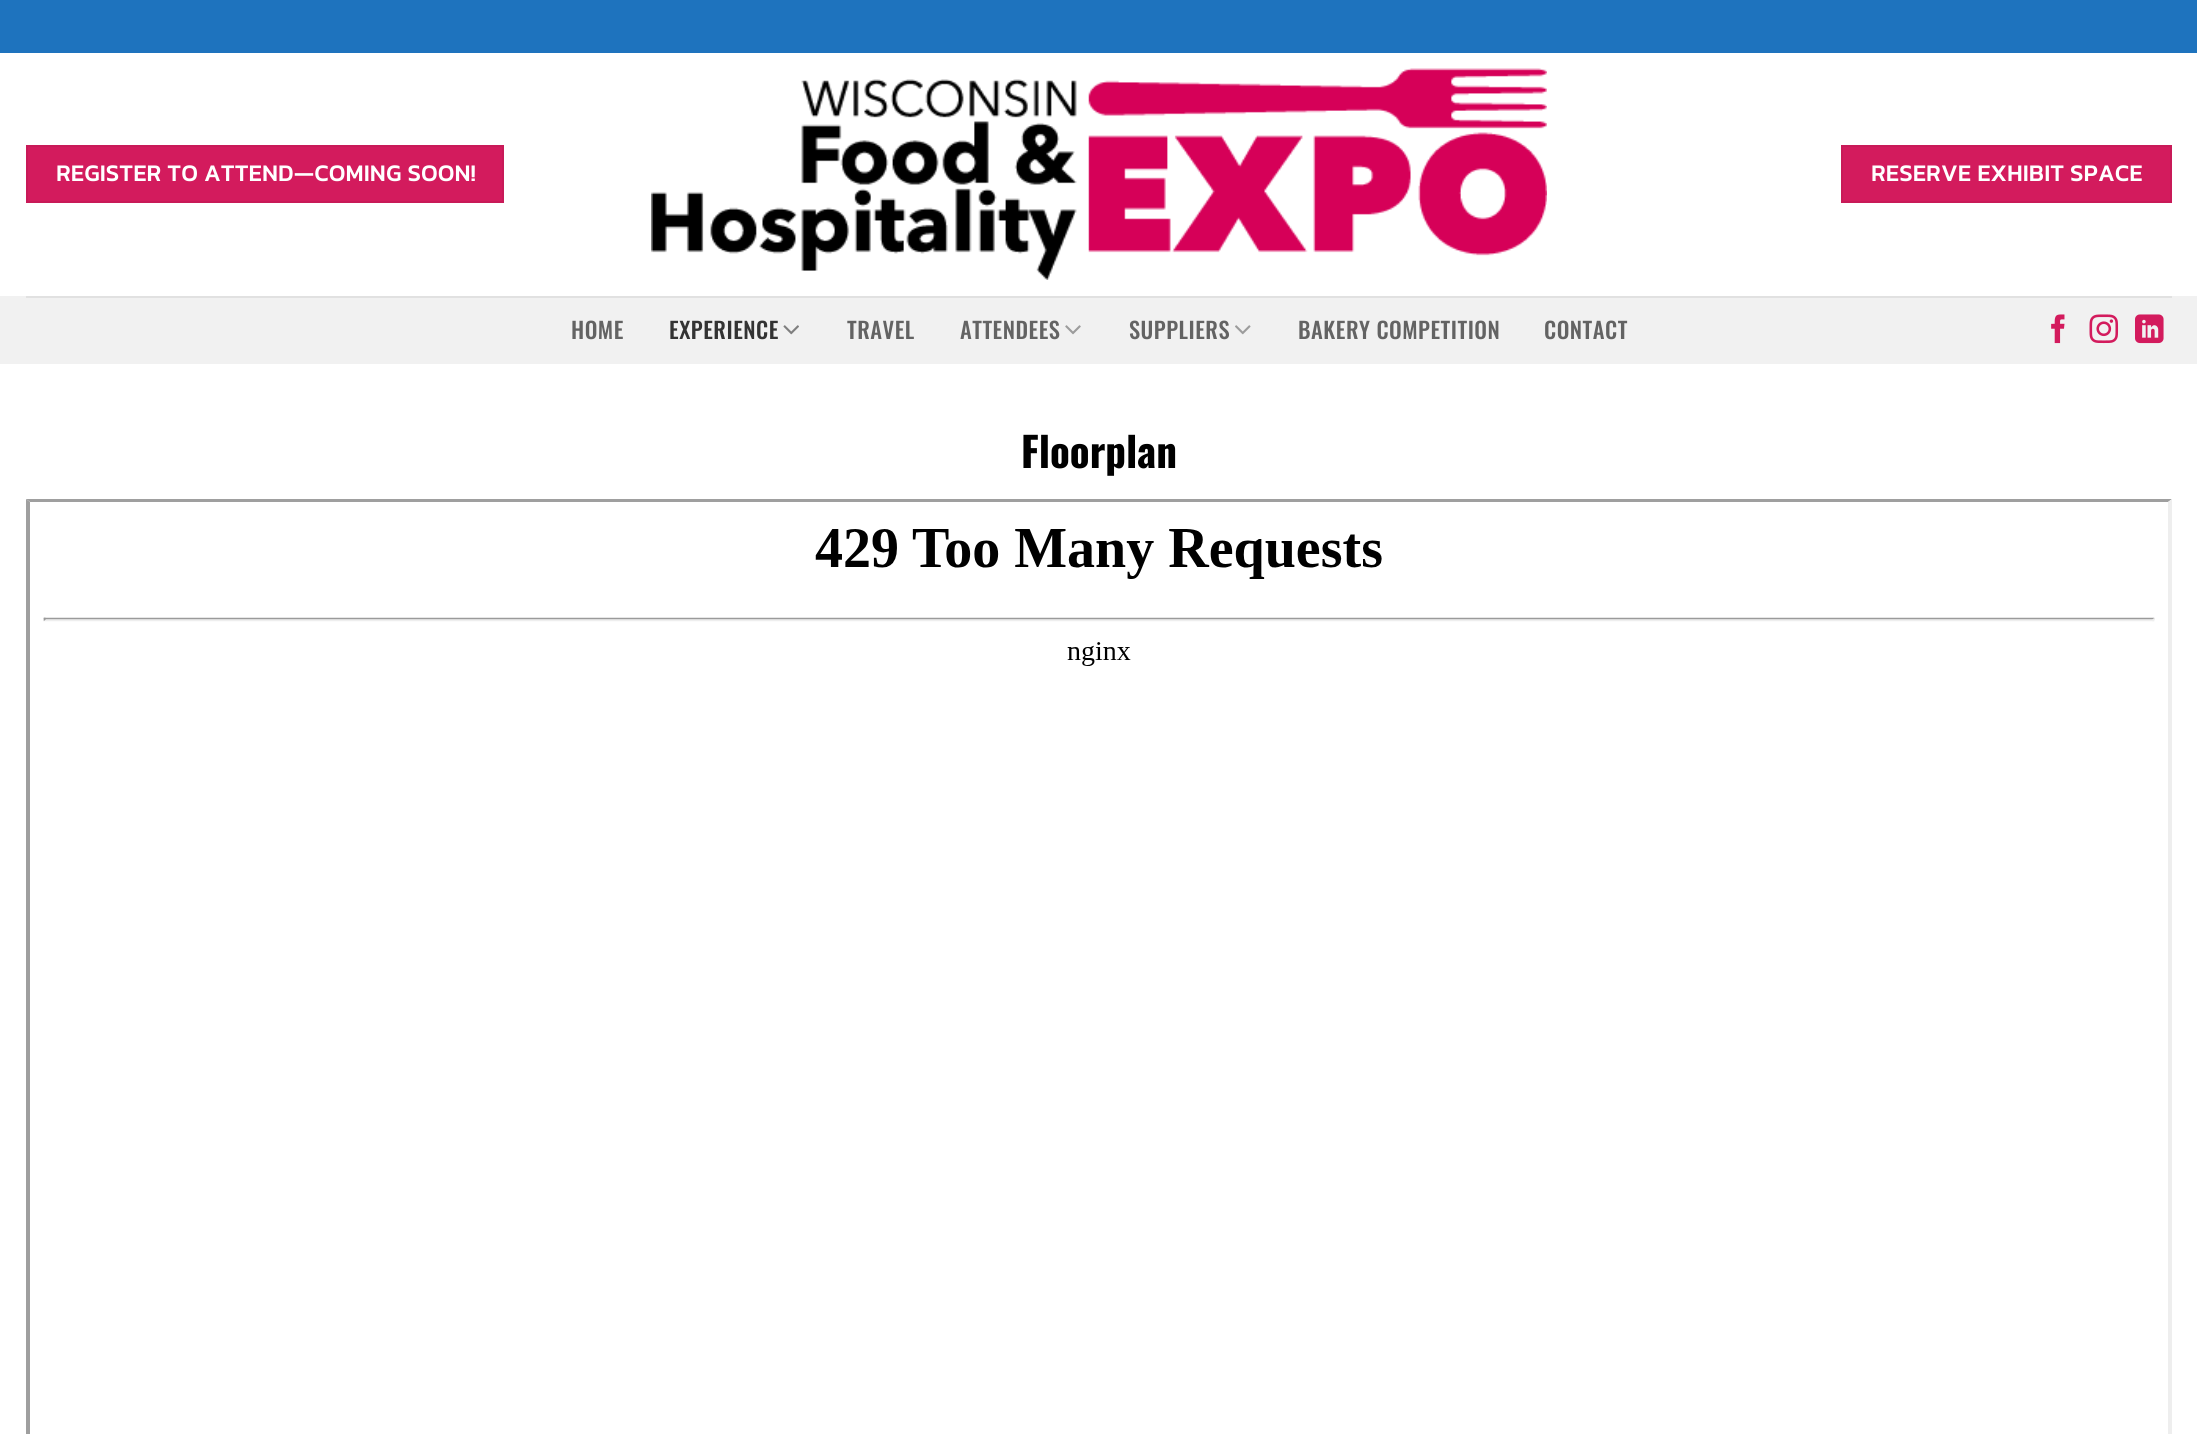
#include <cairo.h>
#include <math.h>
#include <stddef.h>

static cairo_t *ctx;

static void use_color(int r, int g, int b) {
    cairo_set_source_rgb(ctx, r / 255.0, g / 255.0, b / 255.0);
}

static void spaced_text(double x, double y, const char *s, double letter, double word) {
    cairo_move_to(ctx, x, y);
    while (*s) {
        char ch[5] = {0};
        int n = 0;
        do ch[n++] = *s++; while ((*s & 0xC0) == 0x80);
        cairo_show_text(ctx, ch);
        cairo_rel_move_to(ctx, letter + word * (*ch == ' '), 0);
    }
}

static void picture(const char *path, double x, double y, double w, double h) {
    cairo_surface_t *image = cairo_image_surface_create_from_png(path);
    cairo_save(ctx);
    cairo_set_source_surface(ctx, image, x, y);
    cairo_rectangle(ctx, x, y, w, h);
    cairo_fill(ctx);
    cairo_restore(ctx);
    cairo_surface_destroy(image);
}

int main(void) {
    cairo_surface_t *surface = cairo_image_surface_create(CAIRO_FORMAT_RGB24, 2197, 1434);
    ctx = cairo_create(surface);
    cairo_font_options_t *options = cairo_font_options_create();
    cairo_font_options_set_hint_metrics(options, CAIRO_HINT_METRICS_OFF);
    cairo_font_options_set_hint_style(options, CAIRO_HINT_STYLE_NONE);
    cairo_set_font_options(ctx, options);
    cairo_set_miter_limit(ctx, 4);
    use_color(255, 255, 255);
    cairo_paint(ctx);
    use_color(30, 115, 190);
    cairo_rectangle(ctx, 0, 0, 2197, 53);
    cairo_fill(ctx);
    use_color(211, 27, 93);
    cairo_rectangle(ctx, 27, 146, 476, 56);
    cairo_fill_preserve(ctx);
    use_color(200, 26, 88);
    cairo_stroke(ctx);
    cairo_select_font_face(ctx, "Kanit", CAIRO_FONT_SLANT_NORMAL, CAIRO_FONT_WEIGHT_BOLD);
    cairo_set_font_size(ctx, 23.1);
    use_color(255, 255, 255);
    spaced_text(56, 181, "REGISTER TO ATTEND—COMING SOON!", 0.7, 0);
    picture("img1.png", 651, 68, 896, 212);
    use_color(211, 27, 93);
    cairo_rectangle(ctx, 1842, 146, 329, 56);
    cairo_fill_preserve(ctx);
    use_color(200, 26, 88);
    cairo_stroke(ctx);
    use_color(255, 255, 255);
    spaced_text(1871, 181, "RESERVE EXHIBIT SPACE", 0.7, 0);
    use_color(241, 241, 241);
    cairo_rectangle(ctx, 0, 296, 2197, 68);
    cairo_fill(ctx);
    use_color(225, 225, 225);
    cairo_rectangle(ctx, 26, 296, 2146, 2);
    cairo_fill(ctx);
    cairo_select_font_face(ctx, "Oswald Medium", CAIRO_FONT_SLANT_NORMAL, CAIRO_FONT_WEIGHT_NORMAL);
    cairo_set_font_size(ctx, 22.5);
    use_color(99, 99, 99);
    spaced_text(571, 339, "HOME", 0.5, 0);
    use_color(51, 51, 51);
    spaced_text(669, 339, "EXPERIENCE", 0.5, 0);
    picture("img2.png", 783, 325, 16, 10);
    use_color(99, 99, 99);
    spaced_text(847, 339, "TRAVEL", 0.5, 0);
    spaced_text(960, 339, "ATTENDEES", 0.5, 0);
    picture("img3.png", 1065, 325, 16, 10);
    spaced_text(1129, 339, "SUPPLIERS", 0.5, 0);
    picture("img4.png", 1235, 325, 16, 10);
    spaced_text(1298, 339, "BAKERY COMPETITION", 0.5, 0);
    spaced_text(1544, 339, "CONTACT", 0.5, 0);
    picture("img5.png", 2051, 314, 14, 30);
    picture("img6.png", 2089, 314, 30, 30);
    picture("img7.png", 2135, 314, 29, 30);
    cairo_select_font_face(ctx, "Oswald", CAIRO_FONT_SLANT_NORMAL, CAIRO_FONT_WEIGHT_BOLD);
    cairo_set_font_size(ctx, 41);
    use_color(0, 0, 0);
    cairo_move_to(ctx, 1021, 468);
    cairo_show_text(ctx, "Floorplan");
    use_color(159, 159, 159);
    cairo_new_path(ctx);
    cairo_move_to(ctx, 26, 499);
    cairo_line_to(ctx, 2172, 499);
    cairo_line_to(ctx, 2168, 502);
    cairo_line_to(ctx, 30, 502);
    cairo_close_path(ctx);
    cairo_fill(ctx);
    cairo_new_path(ctx);
    cairo_move_to(ctx, 26, 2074);
    cairo_line_to(ctx, 26, 499);
    cairo_line_to(ctx, 30, 502);
    cairo_line_to(ctx, 30, 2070);
    cairo_close_path(ctx);
    cairo_fill(ctx);
    picture("img8.png", 43, 529, 2112, 137);
    use_color(238, 238, 238);
    cairo_new_path(ctx);
    cairo_move_to(ctx, 2172, 499);
    cairo_line_to(ctx, 2172, 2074);
    cairo_line_to(ctx, 2168, 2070);
    cairo_line_to(ctx, 2168, 502);
    cairo_close_path(ctx);
    cairo_fill(ctx);
    cairo_surface_write_to_png(surface, "result.png");
    cairo_font_options_destroy(options);
    cairo_destroy(ctx);
    cairo_surface_destroy(surface);
    return 0;
}
